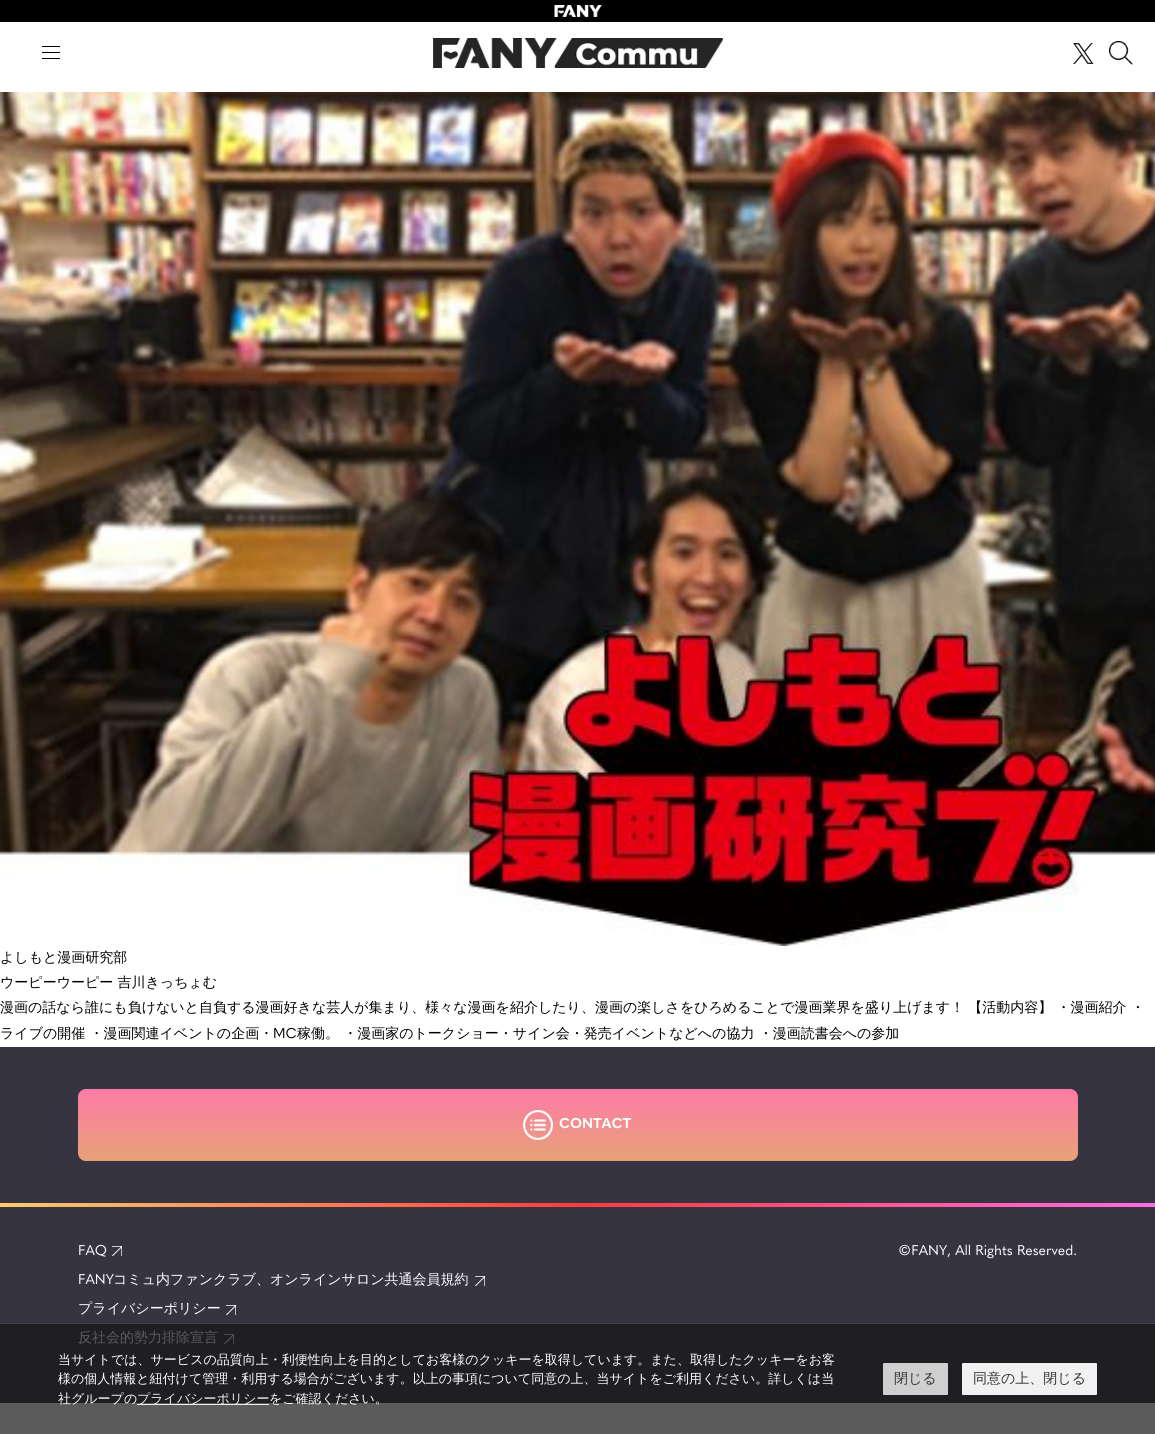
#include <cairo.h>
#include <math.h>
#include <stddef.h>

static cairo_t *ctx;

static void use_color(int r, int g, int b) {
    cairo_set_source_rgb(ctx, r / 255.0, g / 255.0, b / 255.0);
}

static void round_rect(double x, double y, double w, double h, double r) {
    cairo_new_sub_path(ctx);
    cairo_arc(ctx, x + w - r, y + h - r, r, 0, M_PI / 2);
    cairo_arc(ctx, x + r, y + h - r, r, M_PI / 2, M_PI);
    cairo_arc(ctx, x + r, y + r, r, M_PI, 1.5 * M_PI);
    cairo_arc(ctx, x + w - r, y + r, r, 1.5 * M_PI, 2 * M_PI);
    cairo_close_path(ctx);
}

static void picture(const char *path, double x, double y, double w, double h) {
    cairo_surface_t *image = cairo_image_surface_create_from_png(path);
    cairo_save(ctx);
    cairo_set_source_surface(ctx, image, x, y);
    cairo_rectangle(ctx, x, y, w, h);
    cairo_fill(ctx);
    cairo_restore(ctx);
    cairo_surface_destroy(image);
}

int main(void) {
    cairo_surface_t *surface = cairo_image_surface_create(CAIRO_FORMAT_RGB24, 1155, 1434);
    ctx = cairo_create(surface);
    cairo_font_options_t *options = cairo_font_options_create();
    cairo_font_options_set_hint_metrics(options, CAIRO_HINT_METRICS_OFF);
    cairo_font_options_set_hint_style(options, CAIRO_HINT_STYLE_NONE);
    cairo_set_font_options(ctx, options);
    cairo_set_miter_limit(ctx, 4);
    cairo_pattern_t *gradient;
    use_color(255, 255, 255);
    cairo_paint(ctx);
    use_color(91, 91, 91);
    cairo_rectangle(ctx, 0, 1403, 1155, 31);
    cairo_fill(ctx);
    use_color(0, 0, 0);
    cairo_rectangle(ctx, 0, 0, 1155, 22);
    cairo_fill(ctx);
    picture("img1.png", 554, 5, 48, 12);
    use_color(1, 1, 1);
    cairo_rectangle(ctx, 42, 46, 18, 1);
    cairo_fill(ctx);
    cairo_rectangle(ctx, 42, 52, 18, 1);
    cairo_fill(ctx);
    cairo_rectangle(ctx, 42, 58, 18, 1);
    cairo_fill(ctx);
    picture("img2.png", 433, 38, 290, 30);
    picture("img3.png", 1073, 43, 21, 21);
    picture("img4.png", 1109, 41, 24, 24);
    picture("img5.png", 0, 92, 1155, 854);
    cairo_select_font_face(ctx, "WenQuanYi Zen Hei Medium", CAIRO_FONT_SLANT_NORMAL, CAIRO_FONT_WEIGHT_NORMAL);
    cairo_set_font_size(ctx, 14);
    cairo_move_to(ctx, 0, 962);
    cairo_show_text(ctx, "よしもと漫画研究部");
    cairo_move_to(ctx, 0, 987);
    cairo_show_text(ctx, "ウーピーウーピー 吉川きっちょむ");
    cairo_move_to(ctx, 0, 1012);
    cairo_show_text(ctx, "漫画の話なら誰にも負けないと自負する漫画好きな芸人が集まり、様々な漫画を紹介したり、漫画の楽しさをひろめることで漫画業界を盛り上げます！ 【活動内容】 ・漫画紹介 ・");
    cairo_move_to(ctx, 0, 1038);
    cairo_show_text(ctx, "ライブの開催 ・漫画関連イベントの企画・");
    cairo_select_font_face(ctx, "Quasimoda", CAIRO_FONT_SLANT_NORMAL, CAIRO_FONT_WEIGHT_NORMAL);
    cairo_move_to(ctx, 273, 1038);
    cairo_show_text(ctx, "MC");
    cairo_select_font_face(ctx, "WenQuanYi Zen Hei Medium", CAIRO_FONT_SLANT_NORMAL, CAIRO_FONT_WEIGHT_NORMAL);
    cairo_move_to(ctx, 297, 1038);
    cairo_show_text(ctx, "稼働。 ・漫画家のトークショー・サイン会・発売イベントなどへの協力 ・漫画読書会への参加");
    use_color(55, 52, 65);
    cairo_rectangle(ctx, 0, 1047, 1155, 156);
    cairo_fill(ctx);
    gradient = cairo_pattern_create_linear(578, 1161, 578, 1089);
    cairo_pattern_add_color_stop_rgba(gradient, 0, 0.902, 0.635, 0.467, 1);
    cairo_pattern_add_color_stop_rgba(gradient, 1, 0.996, 0.482, 0.651, 1);
    cairo_set_source(ctx, gradient);
    cairo_pattern_destroy(gradient);
    round_rect(78, 1089, 1000, 72, 8);
    cairo_fill(ctx);
    picture("img6.png", 523, 1110, 30, 30);
    cairo_select_font_face(ctx, "Quasimoda", CAIRO_FONT_SLANT_NORMAL, CAIRO_FONT_WEIGHT_BOLD);
    use_color(255, 255, 255);
    cairo_move_to(ctx, 559, 1128);
    cairo_show_text(ctx, "CONTACT");
    use_color(55, 52, 65);
    cairo_rectangle(ctx, 0, 1207, 1155, 116);
    cairo_fill(ctx);
    use_color(31, 30, 34);
    cairo_rectangle(ctx, 0, 1324, 1155, 79);
    cairo_fill(ctx);
    gradient = cairo_pattern_create_linear(0, 1205, 1155, 1205);
    cairo_pattern_add_color_stop_rgba(gradient, 0, 1, 0.796, 0.431, 1);
    cairo_pattern_add_color_stop_rgba(gradient, 0.5, 1, 0.235, 0.235, 1);
    cairo_pattern_add_color_stop_rgba(gradient, 1, 1, 0.424, 0.89, 1);
    cairo_set_source(ctx, gradient);
    cairo_pattern_destroy(gradient);
    cairo_rectangle(ctx, 0, 1203, 1155, 4);
    cairo_fill(ctx);
    picture("img7.png", 112, 1246, 10, 10);
    cairo_select_font_face(ctx, "Quasimoda", CAIRO_FONT_SLANT_NORMAL, CAIRO_FONT_WEIGHT_NORMAL);
    use_color(255, 255, 255);
    cairo_move_to(ctx, 78, 1255);
    cairo_show_text(ctx, "FAQ");
    picture("img8.png", 475, 1276, 10, 10);
    cairo_move_to(ctx, 78, 1284);
    cairo_show_text(ctx, "FANY");
    cairo_select_font_face(ctx, "WenQuanYi Zen Hei Medium", CAIRO_FONT_SLANT_NORMAL, CAIRO_FONT_WEIGHT_NORMAL);
    cairo_move_to(ctx, 113, 1284);
    cairo_show_text(ctx, "コミュ内ファンクラブ、オンラインサロン共通会員規約");
    picture("img8.png", 226, 1305, 10, 10);
    cairo_move_to(ctx, 78, 1313);
    cairo_show_text(ctx, "プライバシーポリシー");
    picture("img9.png", 224, 1334, 10, 10);
    use_color(91, 91, 91);
    cairo_move_to(ctx, 78, 1342);
    cairo_show_text(ctx, "反社会的勢力排除宣言");
    cairo_select_font_face(ctx, "Quasimoda", CAIRO_FONT_SLANT_NORMAL, CAIRO_FONT_WEIGHT_NORMAL);
    use_color(255, 255, 255);
    cairo_move_to(ctx, 898, 1255);
    cairo_show_text(ctx, "©FANY, All Rights Reserved.");
    use_color(64, 63, 67);
    cairo_rectangle(ctx, 0, 1323, 1155, 1);
    cairo_fill(ctx);
    cairo_select_font_face(ctx, "WenQuanYi Zen Hei Medium", CAIRO_FONT_SLANT_NORMAL, CAIRO_FONT_WEIGHT_NORMAL);
    cairo_set_font_size(ctx, 13);
    use_color(255, 255, 255);
    cairo_move_to(ctx, 58, 1364);
    cairo_show_text(ctx, "当サイトでは、サービスの品質向上・利便性向上を目的としてお客様のクッキーを取得しています。また、取得したクッキーをお客");
    cairo_move_to(ctx, 58, 1383);
    cairo_show_text(ctx, "様の個人情報と紐付けて管理・利用する場合がございます。以上の事項について同意の上、当サイトをご利用ください。詳しくは当");
    cairo_move_to(ctx, 58, 1403);
    cairo_show_text(ctx, "社グループの");
    use_color(240, 240, 240);
    cairo_rectangle(ctx, 137, 1404, 132, 1);
    cairo_fill(ctx);
    cairo_move_to(ctx, 137, 1403);
    cairo_show_text(ctx, "プライバシーポリシー");
    use_color(255, 255, 255);
    cairo_move_to(ctx, 269, 1403);
    cairo_show_text(ctx, "をご確認ください。");
    use_color(207, 207, 207);
    round_rect(883, 1363, 65, 32, 1);
    cairo_fill(ctx);
    cairo_set_font_size(ctx, 14);
    use_color(51, 51, 51);
    cairo_move_to(ctx, 894, 1383);
    cairo_show_text(ctx, "閉じる");
    use_color(241, 241, 241);
    round_rect(962, 1363, 135, 32, 1);
    cairo_fill(ctx);
    use_color(51, 51, 51);
    cairo_move_to(ctx, 973, 1383);
    cairo_show_text(ctx, "同意の上、閉じる");
    cairo_surface_write_to_png(surface, "result.png");
    cairo_font_options_destroy(options);
    cairo_destroy(ctx);
    cairo_surface_destroy(surface);
    return 0;
}
